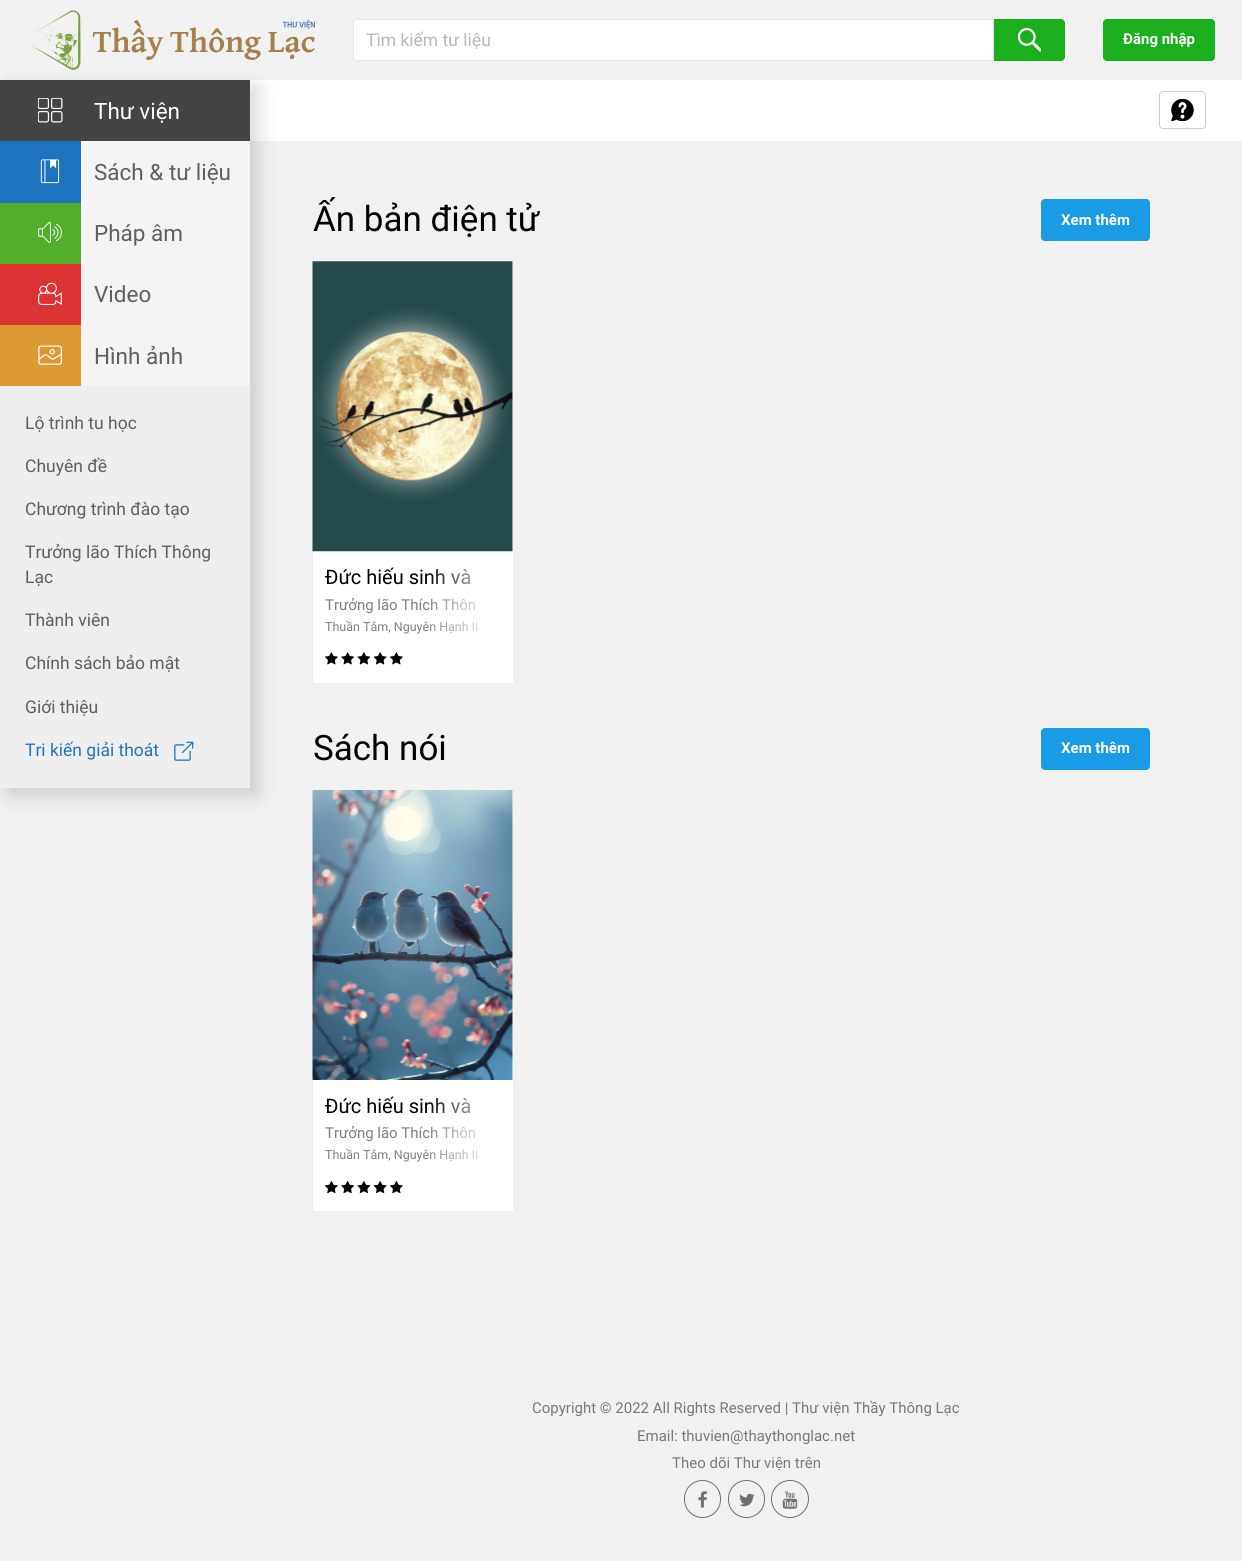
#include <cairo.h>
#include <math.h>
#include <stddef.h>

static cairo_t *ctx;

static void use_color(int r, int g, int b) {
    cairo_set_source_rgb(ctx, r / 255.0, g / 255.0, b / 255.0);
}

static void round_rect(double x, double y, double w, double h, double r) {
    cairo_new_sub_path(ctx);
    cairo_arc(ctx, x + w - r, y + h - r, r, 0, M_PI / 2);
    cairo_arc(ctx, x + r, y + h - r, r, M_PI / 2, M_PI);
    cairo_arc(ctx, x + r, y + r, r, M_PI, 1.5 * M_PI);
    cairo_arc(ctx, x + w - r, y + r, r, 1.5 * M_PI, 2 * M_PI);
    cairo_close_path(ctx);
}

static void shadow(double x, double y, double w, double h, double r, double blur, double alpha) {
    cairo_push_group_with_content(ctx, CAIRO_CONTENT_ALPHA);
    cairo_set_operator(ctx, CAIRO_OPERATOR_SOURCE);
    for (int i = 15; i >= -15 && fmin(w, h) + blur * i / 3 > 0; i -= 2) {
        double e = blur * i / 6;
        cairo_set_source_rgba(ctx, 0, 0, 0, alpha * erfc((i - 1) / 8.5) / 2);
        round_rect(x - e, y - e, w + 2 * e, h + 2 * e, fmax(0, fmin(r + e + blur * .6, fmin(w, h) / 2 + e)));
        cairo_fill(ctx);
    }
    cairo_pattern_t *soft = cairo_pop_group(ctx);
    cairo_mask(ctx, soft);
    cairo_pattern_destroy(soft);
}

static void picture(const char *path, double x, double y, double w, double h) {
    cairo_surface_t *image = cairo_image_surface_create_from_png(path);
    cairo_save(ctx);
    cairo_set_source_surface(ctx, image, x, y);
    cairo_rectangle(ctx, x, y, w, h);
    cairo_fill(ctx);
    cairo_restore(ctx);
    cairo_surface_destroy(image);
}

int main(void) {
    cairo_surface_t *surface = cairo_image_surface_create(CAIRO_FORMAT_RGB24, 1242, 1561);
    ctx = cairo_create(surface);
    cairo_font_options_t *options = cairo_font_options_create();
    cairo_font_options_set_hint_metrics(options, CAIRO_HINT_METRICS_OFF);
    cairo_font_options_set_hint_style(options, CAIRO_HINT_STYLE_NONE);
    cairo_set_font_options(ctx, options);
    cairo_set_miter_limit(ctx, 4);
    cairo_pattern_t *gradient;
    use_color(241, 241, 241);
    cairo_paint(ctx);
    use_color(255, 255, 255);
    cairo_rectangle(ctx, 250, 80, 992, 61);
    cairo_fill(ctx);
    use_color(0, 0, 0);
    shadow(8, 88, 250, 707, 0, 10, 0.16);
    picture("img1.png", 28, 10, 287, 60);
    use_color(255, 255, 255);
    cairo_new_path(ctx);
    cairo_move_to(ctx, 357, 19.5);
    cairo_line_to(ctx, 993.5, 19.5);
    cairo_line_to(ctx, 993.5, 60.5);
    cairo_line_to(ctx, 357, 60.5);
    cairo_curve_to(ctx, 355, 60.5, 353.5, 59, 353.5, 57);
    cairo_line_to(ctx, 353.5, 23);
    cairo_curve_to(ctx, 353.5, 21, 355, 19.5, 357, 19.5);
    cairo_close_path(ctx);
    cairo_fill_preserve(ctx);
    use_color(229, 229, 229);
    cairo_set_line_width(ctx, 1);
    cairo_stroke(ctx);
    cairo_select_font_face(ctx, "Roboto", CAIRO_FONT_SLANT_NORMAL, CAIRO_FONT_WEIGHT_NORMAL);
    cairo_set_font_size(ctx, 17.5);
    use_color(183, 183, 183);
    cairo_move_to(ctx, 366, 46);
    cairo_show_text(ctx, "Tìm kiếm tư liệu");
    use_color(25, 175, 29);
    cairo_new_path(ctx);
    cairo_move_to(ctx, 994, 19);
    cairo_line_to(ctx, 1061, 19);
    cairo_curve_to(ctx, 1063, 19, 1065, 21, 1065, 23);
    cairo_line_to(ctx, 1065, 57);
    cairo_curve_to(ctx, 1065, 59, 1063, 61, 1061, 61);
    cairo_line_to(ctx, 994, 61);
    cairo_close_path(ctx);
    cairo_fill(ctx);
    picture("img2.png", 1018, 28, 23, 24);
    round_rect(1103, 19, 112, 42, 4);
    cairo_fill(ctx);
    cairo_select_font_face(ctx, "Roboto", CAIRO_FONT_SLANT_NORMAL, CAIRO_FONT_WEIGHT_BOLD);
    cairo_set_font_size(ctx, 15);
    use_color(255, 255, 255);
    cairo_move_to(ctx, 1123, 44);
    cairo_show_text(ctx, "Đăng nhập");
    use_color(238, 238, 238);
    cairo_rectangle(ctx, 0, 386, 250, 402);
    cairo_fill(ctx);
    use_color(68, 68, 68);
    cairo_rectangle(ctx, 0, 80, 250, 61);
    cairo_fill(ctx);
    picture("img3.png", 38, 98, 25, 25);
    cairo_select_font_face(ctx, "Roboto", CAIRO_FONT_SLANT_NORMAL, CAIRO_FONT_WEIGHT_NORMAL);
    cairo_set_font_size(ctx, 22.5);
    use_color(255, 255, 255);
    cairo_move_to(ctx, 94, 119);
    cairo_show_text(ctx, "Thư viện");
    use_color(30, 115, 190);
    cairo_rectangle(ctx, 0, 141, 81, 62);
    cairo_fill(ctx);
    picture("img4.png", 40, 159, 20, 25);
    use_color(245, 244, 245);
    cairo_rectangle(ctx, 81, 141, 169, 245);
    cairo_fill(ctx);
    use_color(95, 95, 95);
    cairo_move_to(ctx, 94, 180);
    cairo_show_text(ctx, "Sách & tư liệu");
    use_color(81, 175, 43);
    cairo_rectangle(ctx, 0, 203, 81, 61);
    cairo_fill(ctx);
    picture("img5.png", 38, 222, 24, 21);
    use_color(95, 95, 95);
    cairo_move_to(ctx, 94, 241);
    cairo_show_text(ctx, "Pháp âm");
    use_color(221, 51, 51);
    cairo_rectangle(ctx, 0, 264, 81, 61);
    cairo_fill(ctx);
    picture("img6.png", 38, 282, 24, 23);
    use_color(95, 95, 95);
    cairo_move_to(ctx, 94, 302);
    cairo_show_text(ctx, "Video");
    use_color(221, 153, 51);
    cairo_rectangle(ctx, 0, 325, 81, 61);
    cairo_fill(ctx);
    picture("img7.png", 38, 345, 24, 20);
    use_color(95, 95, 95);
    cairo_move_to(ctx, 94, 364);
    cairo_show_text(ctx, "Hình ảnh");
    cairo_set_font_size(ctx, 17.5);
    cairo_move_to(ctx, 25, 429);
    cairo_show_text(ctx, "Lộ trình tu học");
    cairo_move_to(ctx, 25, 472);
    cairo_show_text(ctx, "Chuyên đề");
    cairo_move_to(ctx, 25, 515);
    cairo_show_text(ctx, "Chương trình đào tạo");
    cairo_move_to(ctx, 25, 558);
    cairo_show_text(ctx, "Trưởng lão Thích Thông");
    cairo_move_to(ctx, 25, 583);
    cairo_show_text(ctx, "Lạc");
    cairo_move_to(ctx, 25, 626);
    cairo_show_text(ctx, "Thành viên");
    cairo_move_to(ctx, 25, 669);
    cairo_show_text(ctx, "Chính sách bảo mật");
    cairo_move_to(ctx, 25, 713);
    cairo_show_text(ctx, "Giới thiệu");
    use_color(31, 115, 190);
    cairo_move_to(ctx, 25, 756);
    cairo_show_text(ctx, "Tri kiến giải thoát");
    picture("img8.png", 174, 741, 20, 20);
    round_rect(1159.5, 91.5, 46, 37, 3.5);
    use_color(204, 204, 204);
    cairo_stroke(ctx);
    picture("img9.png", 1171, 99, 23, 22);
    cairo_set_font_size(ctx, 35);
    use_color(0, 0, 0);
    cairo_move_to(ctx, 313, 231);
    cairo_show_text(ctx, "Ấn bản điện tử");
    use_color(25, 155, 230);
    round_rect(1041, 199, 109, 42, 4);
    cairo_fill(ctx);
    cairo_select_font_face(ctx, "Roboto", CAIRO_FONT_SLANT_NORMAL, CAIRO_FONT_WEIGHT_BOLD);
    cairo_set_font_size(ctx, 15);
    use_color(255, 255, 255);
    cairo_move_to(ctx, 1061, 225);
    cairo_show_text(ctx, "Xem thêm");
    cairo_rectangle(ctx, 313, 261, 200, 422);
    cairo_fill(ctx);
    picture("img10.png", 312, 261, 201, 291);
    cairo_select_font_face(ctx, "Roboto", CAIRO_FONT_SLANT_NORMAL, CAIRO_FONT_WEIGHT_NORMAL);
    cairo_set_font_size(ctx, 20);
    use_color(0, 0, 0);
    cairo_move_to(ctx, 325, 584);
    cairo_show_text(ctx, "Đức hiếu sinh và");
    gradient = cairo_pattern_create_linear(425, 578, 500, 578);
    cairo_pattern_add_color_stop_rgba(gradient, 0, 1, 1, 1, 0);
    cairo_pattern_add_color_stop_rgba(gradient, 1, 1, 1, 1, 1);
    cairo_set_source(ctx, gradient);
    cairo_pattern_destroy(gradient);
    cairo_rectangle(ctx, 427, 569, 44, 16);
    cairo_fill(ctx);
    cairo_set_font_size(ctx, 15);
    use_color(127, 127, 127);
    cairo_move_to(ctx, 325, 610);
    cairo_show_text(ctx, "Trưởng lão Thích Thôn");
    gradient = cairo_pattern_create_linear(425, 605, 500, 605);
    cairo_pattern_add_color_stop_rgba(gradient, 0, 1, 1, 1, 0);
    cairo_pattern_add_color_stop_rgba(gradient, 1, 1, 1, 1, 1);
    cairo_set_source(ctx, gradient);
    cairo_pattern_destroy(gradient);
    cairo_rectangle(ctx, 427, 598, 49, 13);
    cairo_fill(ctx);
    cairo_set_font_size(ctx, 12.5);
    use_color(127, 127, 127);
    cairo_move_to(ctx, 325, 631);
    cairo_show_text(ctx, "Thuần Tâm, Nguyên Hạnh II");
    gradient = cairo_pattern_create_linear(425, 626, 500, 626);
    cairo_pattern_add_color_stop_rgba(gradient, 0, 1, 1, 1, 0);
    cairo_pattern_add_color_stop_rgba(gradient, 1, 1, 1, 1, 1);
    cairo_set_source(ctx, gradient);
    cairo_pattern_destroy(gradient);
    cairo_rectangle(ctx, 427, 621, 51, 12);
    cairo_fill(ctx);
    picture("img11.png", 325, 652, 13, 13);
    picture("img12.png", 341, 652, 13, 13);
    picture("img13.png", 357, 652, 13, 13);
    picture("img14.png", 374, 652, 13, 13);
    picture("img11.png", 390, 652, 13, 13);
    picture("img15.png", 325, 652, 13, 13);
    picture("img16.png", 341, 652, 13, 13);
    picture("img17.png", 357, 652, 14, 13);
    picture("img18.png", 373, 652, 14, 13);
    picture("img15.png", 390, 652, 13, 13);
    cairo_set_font_size(ctx, 35);
    use_color(0, 0, 0);
    cairo_move_to(ctx, 313, 760);
    cairo_show_text(ctx, "Sách nói");
    use_color(25, 155, 230);
    round_rect(1041, 728, 109, 42, 4);
    cairo_fill(ctx);
    cairo_select_font_face(ctx, "Roboto", CAIRO_FONT_SLANT_NORMAL, CAIRO_FONT_WEIGHT_BOLD);
    cairo_set_font_size(ctx, 15);
    use_color(255, 255, 255);
    cairo_move_to(ctx, 1061, 753);
    cairo_show_text(ctx, "Xem thêm");
    cairo_rectangle(ctx, 313, 790, 200, 421);
    cairo_fill(ctx);
    picture("img19.png", 312, 790, 201, 290);
    cairo_select_font_face(ctx, "Roboto", CAIRO_FONT_SLANT_NORMAL, CAIRO_FONT_WEIGHT_NORMAL);
    cairo_set_font_size(ctx, 20);
    use_color(0, 0, 0);
    cairo_move_to(ctx, 325, 1113);
    cairo_show_text(ctx, "Đức hiếu sinh và");
    gradient = cairo_pattern_create_linear(425, 1107, 500, 1107);
    cairo_pattern_add_color_stop_rgba(gradient, 0, 1, 1, 1, 0);
    cairo_pattern_add_color_stop_rgba(gradient, 1, 1, 1, 1, 1);
    cairo_set_source(ctx, gradient);
    cairo_pattern_destroy(gradient);
    cairo_rectangle(ctx, 427, 1098, 44, 16);
    cairo_fill(ctx);
    cairo_set_font_size(ctx, 15);
    use_color(127, 127, 127);
    cairo_move_to(ctx, 325, 1138);
    cairo_show_text(ctx, "Trưởng lão Thích Thôn");
    gradient = cairo_pattern_create_linear(425, 1134, 500, 1134);
    cairo_pattern_add_color_stop_rgba(gradient, 0, 1, 1, 1, 0);
    cairo_pattern_add_color_stop_rgba(gradient, 1, 1, 1, 1, 1);
    cairo_set_source(ctx, gradient);
    cairo_pattern_destroy(gradient);
    cairo_rectangle(ctx, 427, 1126, 49, 13);
    cairo_fill(ctx);
    cairo_set_font_size(ctx, 12.5);
    use_color(127, 127, 127);
    cairo_move_to(ctx, 325, 1159);
    cairo_show_text(ctx, "Thuần Tâm, Nguyên Hạnh II");
    gradient = cairo_pattern_create_linear(425, 1155, 500, 1155);
    cairo_pattern_add_color_stop_rgba(gradient, 0, 1, 1, 1, 0);
    cairo_pattern_add_color_stop_rgba(gradient, 1, 1, 1, 1, 1);
    cairo_set_source(ctx, gradient);
    cairo_pattern_destroy(gradient);
    cairo_rectangle(ctx, 427, 1149, 51, 12);
    cairo_fill(ctx);
    picture("img20.png", 325, 1181, 13, 12);
    picture("img21.png", 341, 1181, 13, 12);
    picture("img22.png", 357, 1181, 14, 12);
    picture("img23.png", 374, 1181, 13, 12);
    picture("img20.png", 390, 1181, 13, 12);
    picture("img24.png", 325, 1181, 13, 13);
    picture("img25.png", 341, 1181, 13, 13);
    picture("img26.png", 357, 1181, 14, 13);
    picture("img27.png", 373, 1181, 14, 13);
    picture("img24.png", 390, 1181, 13, 13);
    cairo_set_font_size(ctx, 15);
    use_color(120, 120, 120);
    cairo_move_to(ctx, 532, 1413);
    cairo_show_text(ctx, "Copyright © 2022 All Rights Reserved | Thư viện Thầy Thông Lạc");
    cairo_move_to(ctx, 637, 1441);
    cairo_show_text(ctx, "Email: thuvien@thaythonglac.net");
    cairo_move_to(ctx, 672, 1468);
    cairo_show_text(ctx, "Theo dõi Thư viện trên");
    round_rect(684.5, 1480.5, 36, 37, 18);
    use_color(112, 112, 112);
    cairo_stroke(ctx);
    picture("img28.png", 698, 1491, 9, 17);
    round_rect(728.5, 1480.5, 36, 37, 18);
    cairo_stroke(ctx);
    picture("img29.png", 739, 1493, 16, 14);
    cairo_arc(ctx, 790, 1499, 18.5, 0, 2 * M_PI);
    cairo_stroke(ctx);
    picture("img30.png", 782, 1491, 16, 18);
    cairo_surface_write_to_png(surface, "result.png");
    cairo_font_options_destroy(options);
    cairo_destroy(ctx);
    cairo_surface_destroy(surface);
    return 0;
}
